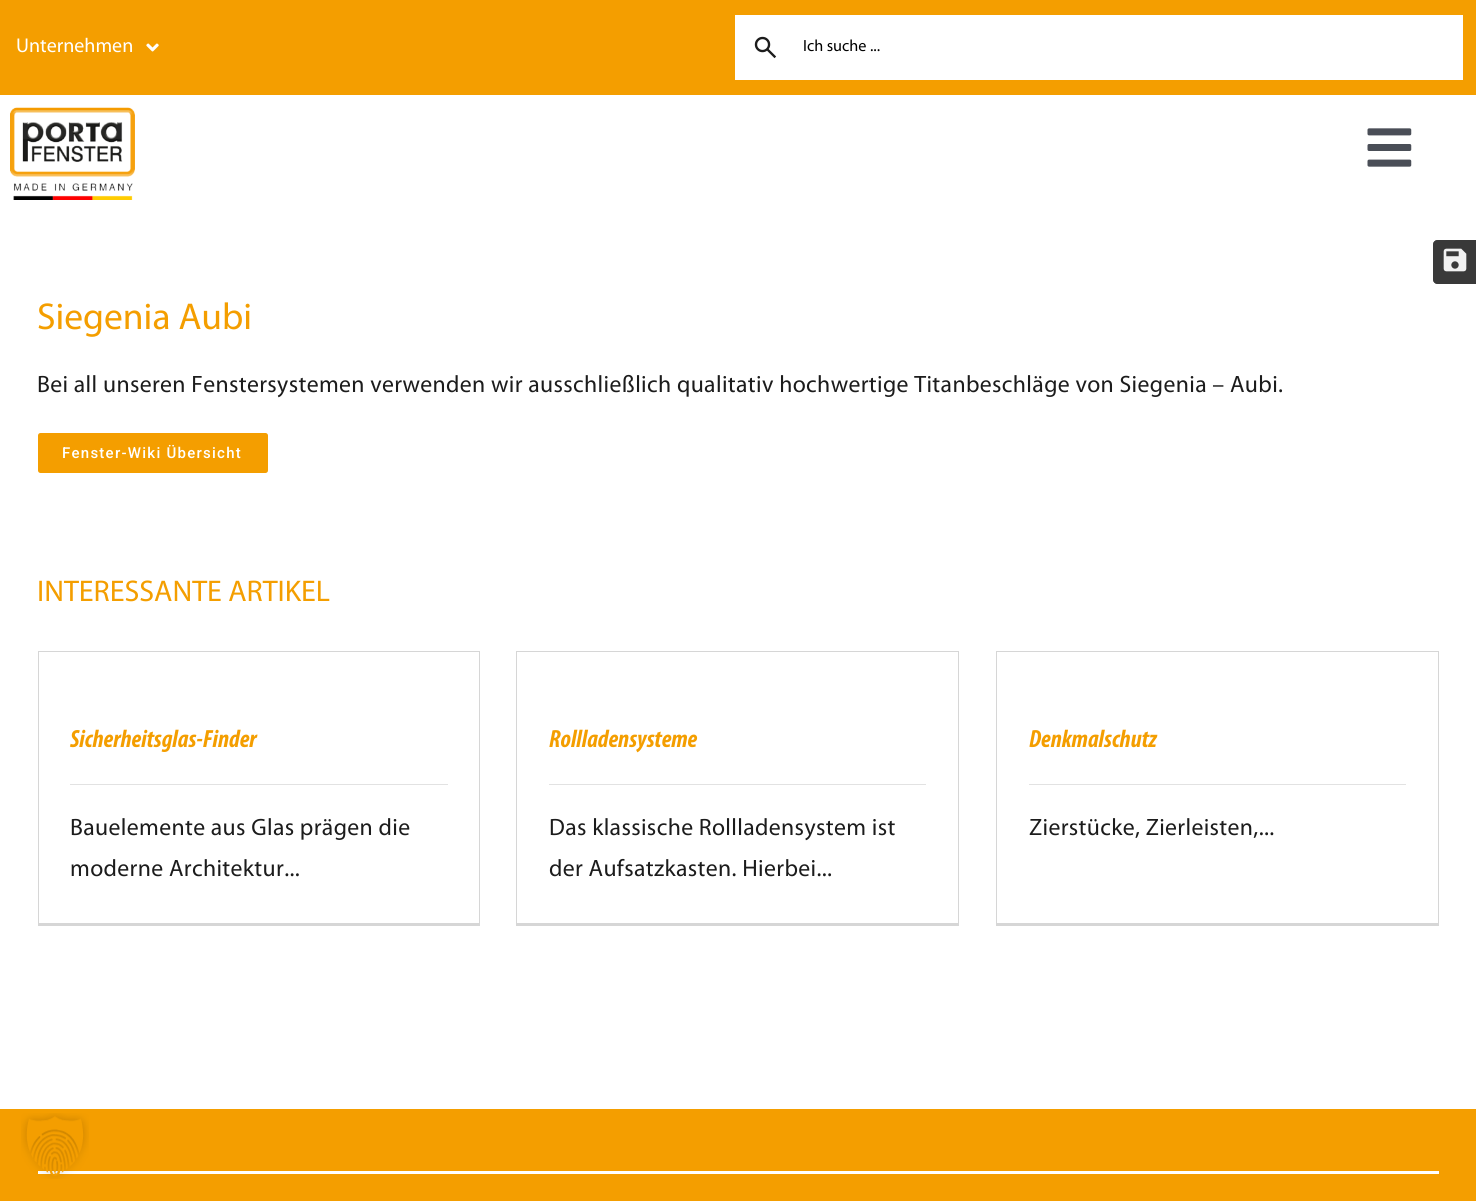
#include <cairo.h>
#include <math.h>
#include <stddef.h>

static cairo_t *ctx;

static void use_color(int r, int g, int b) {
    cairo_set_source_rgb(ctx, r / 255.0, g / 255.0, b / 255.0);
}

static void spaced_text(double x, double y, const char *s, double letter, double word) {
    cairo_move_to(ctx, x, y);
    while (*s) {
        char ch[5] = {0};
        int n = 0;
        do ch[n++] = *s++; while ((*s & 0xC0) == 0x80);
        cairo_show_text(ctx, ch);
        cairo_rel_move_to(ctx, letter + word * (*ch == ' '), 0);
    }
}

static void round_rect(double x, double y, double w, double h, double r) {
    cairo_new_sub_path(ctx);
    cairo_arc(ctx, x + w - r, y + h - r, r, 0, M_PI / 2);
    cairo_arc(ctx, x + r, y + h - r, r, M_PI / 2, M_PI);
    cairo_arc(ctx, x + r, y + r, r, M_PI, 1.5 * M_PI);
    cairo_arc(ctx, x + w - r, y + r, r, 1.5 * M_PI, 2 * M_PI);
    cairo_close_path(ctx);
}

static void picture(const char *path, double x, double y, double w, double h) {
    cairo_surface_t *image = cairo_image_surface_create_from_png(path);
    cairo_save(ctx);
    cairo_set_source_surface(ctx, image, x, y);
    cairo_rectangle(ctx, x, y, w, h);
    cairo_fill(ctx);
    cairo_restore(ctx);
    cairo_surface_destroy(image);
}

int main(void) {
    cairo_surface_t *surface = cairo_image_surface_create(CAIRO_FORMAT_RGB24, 1476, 1201);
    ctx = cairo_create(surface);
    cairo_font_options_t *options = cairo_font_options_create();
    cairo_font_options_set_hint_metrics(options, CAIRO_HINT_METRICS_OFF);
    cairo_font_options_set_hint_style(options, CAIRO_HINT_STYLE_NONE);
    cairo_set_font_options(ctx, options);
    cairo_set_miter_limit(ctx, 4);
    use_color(255, 255, 255);
    cairo_paint(ctx);
    use_color(244, 158, 0);
    cairo_rectangle(ctx, 0, 0, 1476, 95);
    cairo_fill(ctx);
    cairo_select_font_face(ctx, "Myriad", CAIRO_FONT_SLANT_NORMAL, CAIRO_FONT_WEIGHT_NORMAL);
    cairo_set_font_size(ctx, 20);
    use_color(255, 255, 255);
    cairo_move_to(ctx, 16, 52);
    cairo_show_text(ctx, "Unternehmen");
    picture("img1.png", 146, 43, 13, 9);
    cairo_rectangle(ctx, 735, 15, 728, 65);
    cairo_fill(ctx);
    picture("img2.png", 754, 36, 23, 23);
    cairo_set_font_size(ctx, 16.25);
    use_color(0, 0, 0);
    cairo_move_to(ctx, 803, 51);
    cairo_show_text(ctx, "Ich suche ...");
    picture("img3.png", 10, 107, 125, 93);
    picture("img4.png", 1367, 128, 45, 39);
    use_color(117, 117, 117);
    cairo_new_path(ctx);
    cairo_move_to(ctx, 1438, 240);
    cairo_line_to(ctx, 1476, 240);
    cairo_line_to(ctx, 1476, 284);
    cairo_line_to(ctx, 1438, 284);
    cairo_curve_to(ctx, 1435, 284, 1433, 282, 1433, 279);
    cairo_line_to(ctx, 1433, 245);
    cairo_curve_to(ctx, 1433, 242, 1435, 240, 1438, 240);
    cairo_close_path(ctx);
    cairo_fill(ctx);
    picture("img5.png", 1443, 248, 24, 24);
    cairo_set_source_rgba(ctx, 0.2, 0.2, 0.2, 0.68);
    cairo_new_path(ctx);
    cairo_move_to(ctx, 1438, 240);
    cairo_line_to(ctx, 1476, 240);
    cairo_line_to(ctx, 1476, 284);
    cairo_line_to(ctx, 1438, 284);
    cairo_curve_to(ctx, 1435, 284, 1433, 282, 1433, 279);
    cairo_line_to(ctx, 1433, 245);
    cairo_curve_to(ctx, 1433, 242, 1435, 240, 1438, 240);
    cairo_close_path(ctx);
    cairo_fill(ctx);
    picture("img7.png", 1443, 248, 24, 24);
    cairo_new_path(ctx);
    cairo_move_to(ctx, 1438, 240);
    cairo_line_to(ctx, 1476, 240);
    cairo_line_to(ctx, 1476, 284);
    cairo_line_to(ctx, 1438, 284);
    cairo_curve_to(ctx, 1435, 284, 1433, 282, 1433, 279);
    cairo_line_to(ctx, 1433, 245);
    cairo_curve_to(ctx, 1433, 242, 1435, 240, 1438, 240);
    cairo_close_path(ctx);
    cairo_fill(ctx);
    picture("img6.png", 1443, 248, 24, 24);
    use_color(244, 158, 0);
    cairo_rectangle(ctx, 0, 1109, 1476, 92);
    cairo_fill(ctx);
    use_color(255, 255, 255);
    cairo_rectangle(ctx, 38, 1171, 1401, 3);
    cairo_fill(ctx);
    cairo_set_font_size(ctx, 37.5);
    use_color(244, 158, 0);
    cairo_move_to(ctx, 37, 329);
    cairo_show_text(ctx, "Siegenia Aubi");
    cairo_set_font_size(ctx, 23.75);
    use_color(28, 28, 28);
    spaced_text(37, 392, "Bei all unseren Fenstersystemen verwenden wir ausschließlich qualitativ hochwertige Titanbeschläge von Siegenia – Aubi.", 0.36, 0);
    use_color(244, 158, 0);
    round_rect(38, 433, 230, 40, 2.5);
    cairo_fill(ctx);
    cairo_select_font_face(ctx, "Roboto Medium", CAIRO_FONT_SLANT_NORMAL, CAIRO_FONT_WEIGHT_NORMAL);
    cairo_set_font_size(ctx, 15);
    use_color(255, 255, 255);
    spaced_text(62, 458, "Fenster-Wiki Übersicht", 1.25, 0);
    cairo_select_font_face(ctx, "Myriad", CAIRO_FONT_SLANT_NORMAL, CAIRO_FONT_WEIGHT_NORMAL);
    cairo_set_font_size(ctx, 30);
    use_color(244, 158, 0);
    cairo_move_to(ctx, 37, 601);
    cairo_show_text(ctx, "INTERESSANTE ARTIKEL");
    use_color(214, 214, 214);
    cairo_rectangle(ctx, 38, 651, 442, 1);
    cairo_fill(ctx);
    cairo_rectangle(ctx, 479, 651, 1, 275);
    cairo_fill(ctx);
    cairo_rectangle(ctx, 38, 923, 442, 3);
    cairo_fill(ctx);
    cairo_rectangle(ctx, 38, 651, 1, 275);
    cairo_fill(ctx);
    cairo_select_font_face(ctx, "Myriad", CAIRO_FONT_SLANT_ITALIC, CAIRO_FONT_WEIGHT_BOLD);
    cairo_set_font_size(ctx, 25);
    use_color(244, 158, 0);
    cairo_move_to(ctx, 70, 747);
    cairo_show_text(ctx, "Sicherheitsglas-Finder");
    use_color(226, 226, 226);
    cairo_rectangle(ctx, 70, 784, 378, 1);
    cairo_fill(ctx);
    cairo_select_font_face(ctx, "Myriad", CAIRO_FONT_SLANT_NORMAL, CAIRO_FONT_WEIGHT_NORMAL);
    cairo_set_font_size(ctx, 23.75);
    use_color(28, 28, 28);
    spaced_text(70, 835, "Bauelemente aus Glas prägen die", 0.36, 0);
    spaced_text(70, 876, "moderne Architektur...", 0.36, 0);
    use_color(214, 214, 214);
    cairo_rectangle(ctx, 516, 651, 443, 1);
    cairo_fill(ctx);
    cairo_rectangle(ctx, 958, 651, 1, 275);
    cairo_fill(ctx);
    cairo_rectangle(ctx, 516, 923, 443, 3);
    cairo_fill(ctx);
    cairo_rectangle(ctx, 516, 651, 1, 275);
    cairo_fill(ctx);
    cairo_select_font_face(ctx, "Myriad", CAIRO_FONT_SLANT_ITALIC, CAIRO_FONT_WEIGHT_BOLD);
    cairo_set_font_size(ctx, 25);
    use_color(244, 158, 0);
    cairo_move_to(ctx, 549, 747);
    cairo_show_text(ctx, "Rollladensysteme");
    use_color(226, 226, 226);
    cairo_rectangle(ctx, 549, 784, 377, 1);
    cairo_fill(ctx);
    cairo_select_font_face(ctx, "Myriad", CAIRO_FONT_SLANT_NORMAL, CAIRO_FONT_WEIGHT_NORMAL);
    cairo_set_font_size(ctx, 23.75);
    use_color(28, 28, 28);
    spaced_text(549, 835, "Das klassische Rollladensystem ist", 0.36, 0);
    spaced_text(549, 876, "der Aufsatzkasten. Hierbei...", 0.36, 0);
    use_color(214, 214, 214);
    cairo_rectangle(ctx, 996, 651, 443, 1);
    cairo_fill(ctx);
    cairo_rectangle(ctx, 1438, 651, 1, 275);
    cairo_fill(ctx);
    cairo_rectangle(ctx, 996, 923, 443, 3);
    cairo_fill(ctx);
    cairo_rectangle(ctx, 996, 651, 1, 275);
    cairo_fill(ctx);
    cairo_select_font_face(ctx, "Myriad", CAIRO_FONT_SLANT_ITALIC, CAIRO_FONT_WEIGHT_BOLD);
    cairo_set_font_size(ctx, 25);
    use_color(244, 158, 0);
    cairo_move_to(ctx, 1029, 747);
    cairo_show_text(ctx, "Denkmalschutz");
    use_color(226, 226, 226);
    cairo_rectangle(ctx, 1029, 784, 377, 1);
    cairo_fill(ctx);
    cairo_select_font_face(ctx, "Myriad", CAIRO_FONT_SLANT_NORMAL, CAIRO_FONT_WEIGHT_NORMAL);
    cairo_set_font_size(ctx, 23.75);
    use_color(28, 28, 28);
    spaced_text(1029, 835, "Zierstücke, Zierleisten,...", 0.36, 0);
    picture("img8.png", 21, 1113, 68, 66);
    cairo_surface_write_to_png(surface, "result.png");
    cairo_font_options_destroy(options);
    cairo_destroy(ctx);
    cairo_surface_destroy(surface);
    return 0;
}
